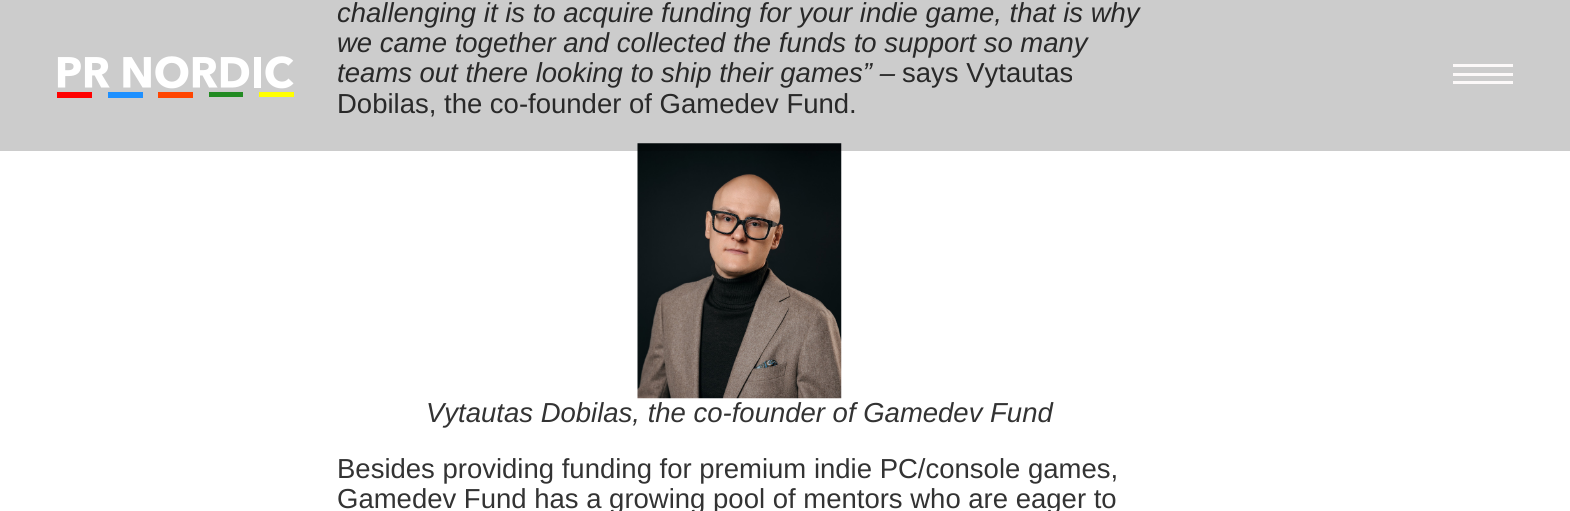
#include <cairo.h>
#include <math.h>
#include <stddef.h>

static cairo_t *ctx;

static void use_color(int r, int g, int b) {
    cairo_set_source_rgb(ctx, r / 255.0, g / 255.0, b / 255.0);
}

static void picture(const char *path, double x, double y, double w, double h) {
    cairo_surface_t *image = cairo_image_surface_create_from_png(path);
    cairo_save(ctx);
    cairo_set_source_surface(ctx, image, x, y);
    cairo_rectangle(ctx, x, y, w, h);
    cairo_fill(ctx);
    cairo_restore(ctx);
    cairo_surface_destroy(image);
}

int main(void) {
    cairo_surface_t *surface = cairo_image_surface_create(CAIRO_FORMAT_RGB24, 1570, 511);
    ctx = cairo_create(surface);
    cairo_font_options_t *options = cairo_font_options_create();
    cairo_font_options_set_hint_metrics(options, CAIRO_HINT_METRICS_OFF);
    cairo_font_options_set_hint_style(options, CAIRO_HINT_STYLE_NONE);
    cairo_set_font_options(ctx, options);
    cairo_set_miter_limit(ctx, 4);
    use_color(255, 255, 255);
    cairo_paint(ctx);
    cairo_select_font_face(ctx, "Liberation Sans", CAIRO_FONT_SLANT_ITALIC, CAIRO_FONT_WEIGHT_NORMAL);
    cairo_set_font_size(ctx, 27.5);
    use_color(51, 51, 51);
    cairo_move_to(ctx, 337, 22);
    cairo_show_text(ctx, "challenging it is to acquire funding for your indie game, that is why");
    cairo_move_to(ctx, 337, 52);
    cairo_show_text(ctx, "we came together and collected the funds to support so many");
    cairo_move_to(ctx, 337, 82);
    cairo_show_text(ctx, "teams out there looking to ship their games” –");
    cairo_select_font_face(ctx, "Liberation Sans", CAIRO_FONT_SLANT_NORMAL, CAIRO_FONT_WEIGHT_NORMAL);
    cairo_move_to(ctx, 902, 82);
    cairo_show_text(ctx, "says Vytautas");
    cairo_move_to(ctx, 337, 113);
    cairo_show_text(ctx, "Dobilas, the co-founder of Gamedev Fund.");
    picture("img2.png", 637, 143, 205, 256);
    cairo_set_source_rgba(ctx, 0, 0, 0, 0.2);
    cairo_rectangle(ctx, 0, 0, 1570, 151);
    cairo_fill(ctx);
    picture("img1.png", 57, 56, 237, 42);
    use_color(252, 249, 249);
    cairo_rectangle(ctx, 1453, 73, 60, 3);
    cairo_fill(ctx);
    cairo_rectangle(ctx, 1453, 64, 60, 3);
    cairo_fill(ctx);
    cairo_rectangle(ctx, 1453, 81, 60, 3);
    cairo_fill(ctx);
    cairo_select_font_face(ctx, "Liberation Sans", CAIRO_FONT_SLANT_ITALIC, CAIRO_FONT_WEIGHT_NORMAL);
    use_color(51, 51, 51);
    cairo_move_to(ctx, 426, 422);
    cairo_show_text(ctx, "Vytautas Dobilas, the co-founder of Gamedev Fund");
    cairo_select_font_face(ctx, "Liberation Sans", CAIRO_FONT_SLANT_NORMAL, CAIRO_FONT_WEIGHT_NORMAL);
    cairo_move_to(ctx, 337, 478);
    cairo_show_text(ctx, "Besides providing funding for premium indie PC/console games,");
    cairo_move_to(ctx, 337, 508);
    cairo_show_text(ctx, "Gamedev Fund has a growing pool of mentors who are eager to");
    cairo_surface_write_to_png(surface, "result.png");
    cairo_font_options_destroy(options);
    cairo_destroy(ctx);
    cairo_surface_destroy(surface);
    return 0;
}
